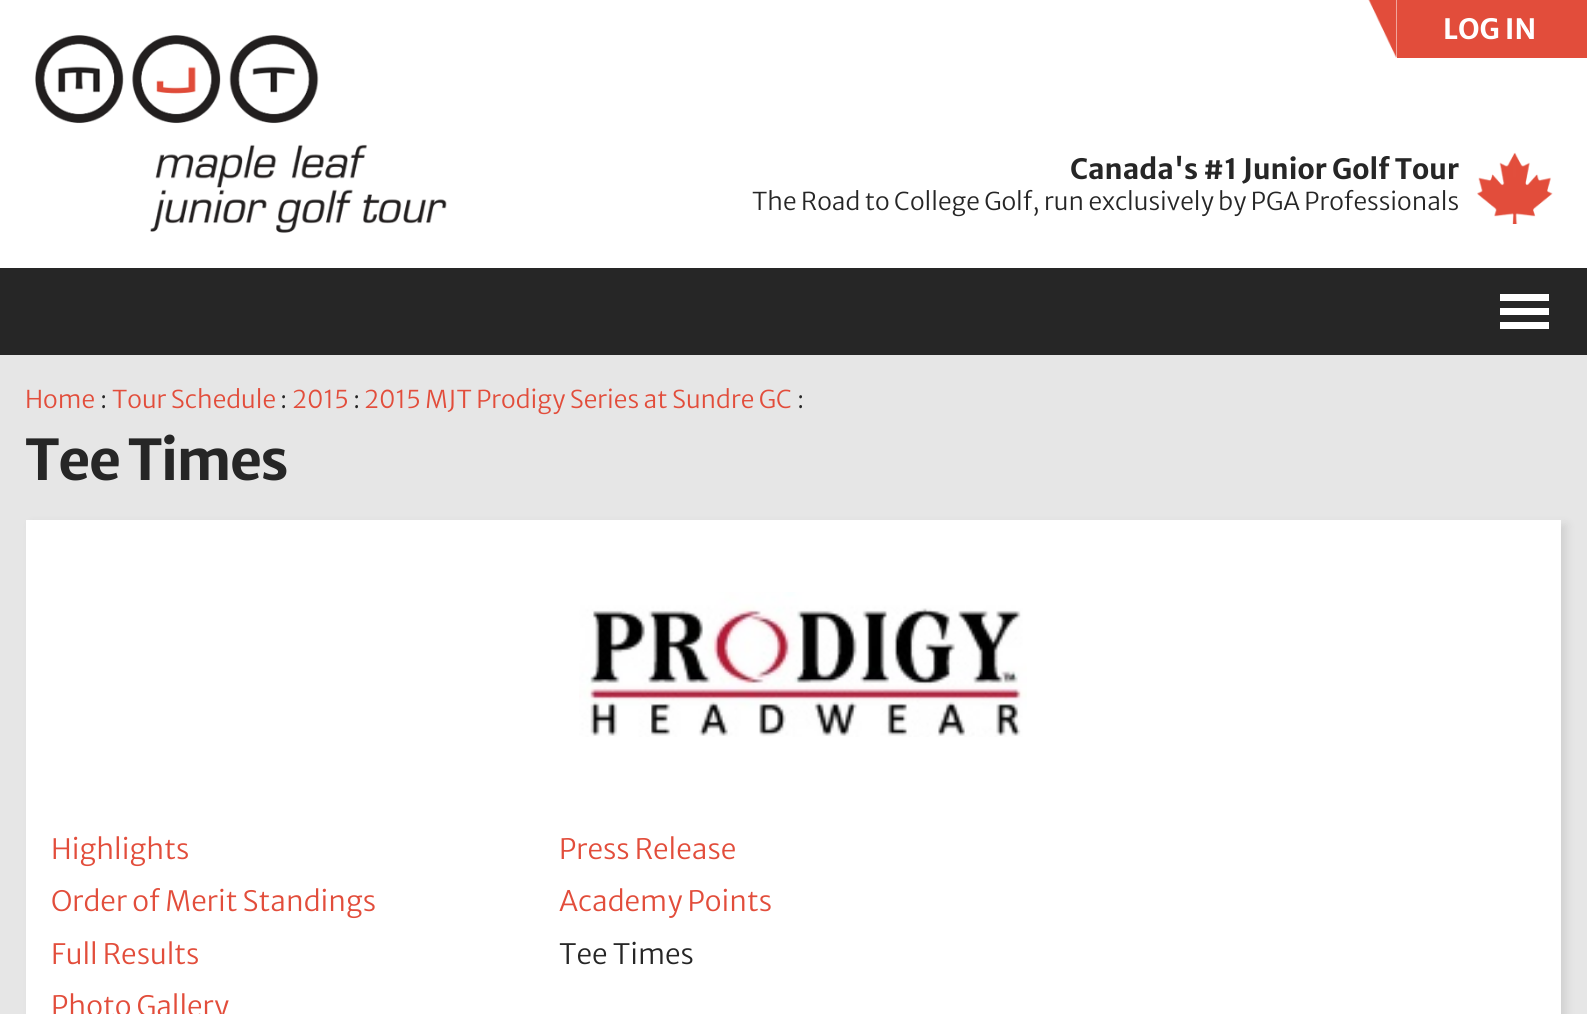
#include <cairo.h>
#include <math.h>
#include <stddef.h>

static cairo_t *ctx;

static void use_color(int r, int g, int b) {
    cairo_set_source_rgb(ctx, r / 255.0, g / 255.0, b / 255.0);
}

static void spaced_text(double x, double y, const char *s, double letter, double word) {
    cairo_move_to(ctx, x, y);
    while (*s) {
        char ch[5] = {0};
        int n = 0;
        do ch[n++] = *s++; while ((*s & 0xC0) == 0x80);
        cairo_show_text(ctx, ch);
        cairo_rel_move_to(ctx, letter + word * (*ch == ' '), 0);
    }
}

static void round_rect(double x, double y, double w, double h, double r) {
    cairo_new_sub_path(ctx);
    cairo_arc(ctx, x + w - r, y + h - r, r, 0, M_PI / 2);
    cairo_arc(ctx, x + r, y + h - r, r, M_PI / 2, M_PI);
    cairo_arc(ctx, x + r, y + r, r, M_PI, 1.5 * M_PI);
    cairo_arc(ctx, x + w - r, y + r, r, 1.5 * M_PI, 2 * M_PI);
    cairo_close_path(ctx);
}

static void shadow(double x, double y, double w, double h, double r, double blur, double alpha) {
    cairo_push_group_with_content(ctx, CAIRO_CONTENT_ALPHA);
    cairo_set_operator(ctx, CAIRO_OPERATOR_SOURCE);
    for (int i = 15; i >= -15 && fmin(w, h) + blur * i / 3 > 0; i -= 2) {
        double e = blur * i / 6;
        cairo_set_source_rgba(ctx, 0, 0, 0, alpha * erfc((i - 1) / 8.5) / 2);
        round_rect(x - e, y - e, w + 2 * e, h + 2 * e, fmax(0, fmin(r + e + blur * .6, fmin(w, h) / 2 + e)));
        cairo_fill(ctx);
    }
    cairo_pattern_t *soft = cairo_pop_group(ctx);
    cairo_mask(ctx, soft);
    cairo_pattern_destroy(soft);
}

static void picture(const char *path, double x, double y, double w, double h) {
    cairo_surface_t *image = cairo_image_surface_create_from_png(path);
    cairo_save(ctx);
    cairo_set_source_surface(ctx, image, x, y);
    cairo_rectangle(ctx, x, y, w, h);
    cairo_fill(ctx);
    cairo_restore(ctx);
    cairo_surface_destroy(image);
}

int main(void) {
    cairo_surface_t *surface = cairo_image_surface_create(CAIRO_FORMAT_RGB24, 1587, 1014);
    ctx = cairo_create(surface);
    cairo_font_options_t *options = cairo_font_options_create();
    cairo_font_options_set_hint_metrics(options, CAIRO_HINT_METRICS_OFF);
    cairo_font_options_set_hint_style(options, CAIRO_HINT_STYLE_NONE);
    cairo_set_font_options(ctx, options);
    cairo_set_miter_limit(ctx, 4);
    use_color(230, 230, 230);
    cairo_paint(ctx);
    use_color(255, 255, 255);
    cairo_rectangle(ctx, 0, 0, 1587, 268);
    cairo_fill(ctx);
    use_color(226, 77, 59);
    cairo_rectangle(ctx, 1397, 0, 190, 58);
    cairo_fill(ctx);
    picture("img1.png", 1368, 0, 29, 58);
    cairo_select_font_face(ctx, "Merriweather Sans", CAIRO_FONT_SLANT_NORMAL, CAIRO_FONT_WEIGHT_BOLD);
    cairo_set_font_size(ctx, 28);
    use_color(255, 255, 255);
    cairo_move_to(ctx, 1443, 39);
    cairo_show_text(ctx, "LOG IN");
    picture("img2.png", 35, 35, 412, 198);
    use_color(38, 38, 38);
    cairo_move_to(ctx, 1070, 179);
    cairo_show_text(ctx, "Canada's #1 Junior Golf Tour");
    picture("img3.png", 1477, 152, 76, 72);
    cairo_select_font_face(ctx, "Merriweather Sans Light", CAIRO_FONT_SLANT_NORMAL, CAIRO_FONT_WEIGHT_NORMAL);
    cairo_set_font_size(ctx, 24.5);
    cairo_move_to(ctx, 752, 210);
    cairo_show_text(ctx, "The Road to College Golf, run exclusively by PGA Professionals");
    cairo_rectangle(ctx, 0, 268, 1587, 87);
    cairo_fill(ctx);
    use_color(255, 255, 255);
    cairo_new_path(ctx);
    cairo_move_to(ctx, 1500, 294);
    cairo_line_to(ctx, 1549, 294);
    cairo_line_to(ctx, 1549, 301);
    cairo_line_to(ctx, 1500, 301);
    cairo_close_path(ctx);
    cairo_move_to(ctx, 1500, 308);
    cairo_line_to(ctx, 1549, 308);
    cairo_line_to(ctx, 1549, 315);
    cairo_line_to(ctx, 1500, 315);
    cairo_close_path(ctx);
    cairo_move_to(ctx, 1500, 322);
    cairo_line_to(ctx, 1549, 322);
    cairo_line_to(ctx, 1549, 329);
    cairo_line_to(ctx, 1500, 329);
    cairo_close_path(ctx);
    cairo_fill(ctx);
    use_color(226, 77, 59);
    cairo_move_to(ctx, 25, 408);
    cairo_show_text(ctx, "Home");
    use_color(38, 38, 38);
    cairo_move_to(ctx, 100, 408);
    cairo_show_text(ctx, ":");
    use_color(226, 77, 59);
    cairo_move_to(ctx, 112, 408);
    cairo_show_text(ctx, "Tour Schedule");
    use_color(38, 38, 38);
    cairo_move_to(ctx, 280, 408);
    cairo_show_text(ctx, ":");
    use_color(226, 77, 59);
    cairo_move_to(ctx, 292, 408);
    cairo_show_text(ctx, "2015");
    use_color(38, 38, 38);
    cairo_move_to(ctx, 353, 408);
    cairo_show_text(ctx, ":");
    use_color(226, 77, 59);
    cairo_move_to(ctx, 364, 408);
    cairo_show_text(ctx, "2015 MJT Prodigy Series at Sundre GC");
    use_color(38, 38, 38);
    cairo_move_to(ctx, 797, 408);
    cairo_show_text(ctx, ":");
    cairo_select_font_face(ctx, "Merriweather Sans", CAIRO_FONT_SLANT_NORMAL, CAIRO_FONT_WEIGHT_BOLD);
    cairo_set_font_size(ctx, 56);
    spaced_text(25, 480, "Tee Times", -1.75, 0);
    use_color(0, 0, 0);
    shadow(32, 525, 1534, 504, 0, 5, 0.1);
    use_color(255, 255, 255);
    cairo_rectangle(ctx, 26, 520, 1535, 494);
    cairo_fill(ctx);
    picture("img4.png", 579, 592, 448, 145);
    cairo_select_font_face(ctx, "Merriweather Sans Light", CAIRO_FONT_SLANT_NORMAL, CAIRO_FONT_WEIGHT_NORMAL);
    cairo_set_font_size(ctx, 28);
    use_color(226, 77, 59);
    cairo_move_to(ctx, 51, 859);
    cairo_show_text(ctx, "Highlights");
    cairo_move_to(ctx, 559, 859);
    cairo_show_text(ctx, "Press Release");
    cairo_move_to(ctx, 51, 911);
    cairo_show_text(ctx, "Order of Merit Standings");
    cairo_move_to(ctx, 559, 911);
    cairo_show_text(ctx, "Academy Points");
    cairo_move_to(ctx, 51, 964);
    cairo_show_text(ctx, "Full Results");
    use_color(38, 38, 38);
    cairo_move_to(ctx, 559, 964);
    cairo_show_text(ctx, "Tee Times");
    use_color(226, 77, 59);
    cairo_move_to(ctx, 51, 1016);
    cairo_show_text(ctx, "Photo Gallery");
    cairo_surface_write_to_png(surface, "result.png");
    cairo_font_options_destroy(options);
    cairo_destroy(ctx);
    cairo_surface_destroy(surface);
    return 0;
}
